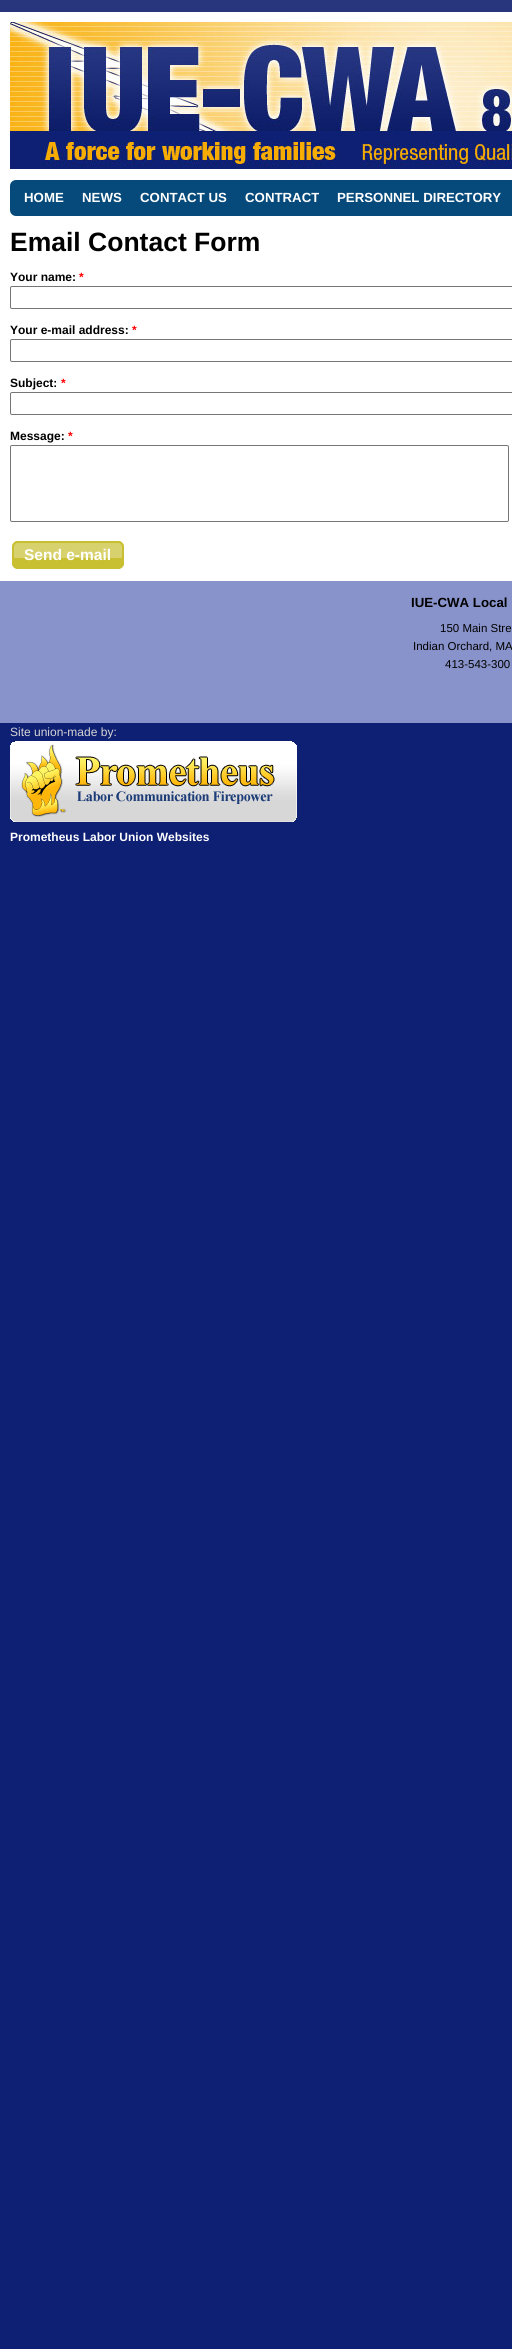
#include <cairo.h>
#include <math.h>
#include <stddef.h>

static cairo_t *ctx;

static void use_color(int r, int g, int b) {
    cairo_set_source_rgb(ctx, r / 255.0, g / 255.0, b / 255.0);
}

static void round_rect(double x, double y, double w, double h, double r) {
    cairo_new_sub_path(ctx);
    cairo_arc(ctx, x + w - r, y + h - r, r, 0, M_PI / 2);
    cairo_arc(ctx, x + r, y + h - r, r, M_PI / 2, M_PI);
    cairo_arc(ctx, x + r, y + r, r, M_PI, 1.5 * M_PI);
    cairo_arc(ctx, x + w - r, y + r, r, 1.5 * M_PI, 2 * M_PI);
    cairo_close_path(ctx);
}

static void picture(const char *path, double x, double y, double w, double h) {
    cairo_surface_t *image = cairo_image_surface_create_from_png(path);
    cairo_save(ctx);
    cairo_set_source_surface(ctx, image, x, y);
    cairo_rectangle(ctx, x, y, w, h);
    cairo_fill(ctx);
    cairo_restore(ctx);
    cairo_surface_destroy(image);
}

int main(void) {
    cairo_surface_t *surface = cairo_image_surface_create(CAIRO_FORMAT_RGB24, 512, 2349);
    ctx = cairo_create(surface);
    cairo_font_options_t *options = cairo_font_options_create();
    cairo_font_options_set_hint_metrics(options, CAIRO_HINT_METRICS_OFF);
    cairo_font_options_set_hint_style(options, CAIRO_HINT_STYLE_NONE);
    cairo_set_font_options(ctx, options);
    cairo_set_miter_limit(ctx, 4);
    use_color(14, 32, 116);
    cairo_paint(ctx);
    picture("img1.png", 0, 0, 512, 12);
    use_color(255, 255, 255);
    cairo_rectangle(ctx, 0, 12, 512, 217);
    cairo_fill(ctx);
    picture("img2.png", 10, 22, 502, 147);
    use_color(6, 74, 123);
    round_rect(10, 180, 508, 36, 6);
    cairo_fill(ctx);
    cairo_select_font_face(ctx, "Liberation Sans", CAIRO_FONT_SLANT_NORMAL, CAIRO_FONT_WEIGHT_BOLD);
    cairo_set_font_size(ctx, 13.25);
    use_color(255, 255, 255);
    cairo_move_to(ctx, 24, 202);
    cairo_show_text(ctx, "HOME");
    cairo_move_to(ctx, 82, 202);
    cairo_show_text(ctx, "NEWS");
    cairo_move_to(ctx, 140, 202);
    cairo_show_text(ctx, "CONTACT US");
    cairo_move_to(ctx, 245, 202);
    cairo_show_text(ctx, "CONTRACT");
    cairo_move_to(ctx, 337, 202);
    cairo_show_text(ctx, "PERSONNEL DIRECTORY");
    cairo_rectangle(ctx, 0, 229, 512, 352);
    cairo_fill(ctx);
    cairo_set_font_size(ctx, 26.5);
    use_color(0, 0, 0);
    cairo_move_to(ctx, 10, 251);
    cairo_show_text(ctx, "Email Contact Form");
    cairo_set_font_size(ctx, 12);
    cairo_move_to(ctx, 10, 281);
    cairo_show_text(ctx, "Your name:");
    use_color(255, 0, 0);
    cairo_move_to(ctx, 79, 281);
    cairo_show_text(ctx, "*");
    round_rect(10.5, 286.5, 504, 22, 1.5);
    use_color(118, 118, 118);
    cairo_set_line_width(ctx, 1);
    cairo_stroke(ctx);
    use_color(0, 0, 0);
    cairo_move_to(ctx, 10, 334);
    cairo_show_text(ctx, "Your e-mail address:");
    use_color(255, 0, 0);
    cairo_move_to(ctx, 132, 334);
    cairo_show_text(ctx, "*");
    round_rect(10.5, 339.5, 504, 22, 1.5);
    use_color(118, 118, 118);
    cairo_stroke(ctx);
    use_color(0, 0, 0);
    cairo_move_to(ctx, 10, 387);
    cairo_show_text(ctx, "Subject:");
    use_color(255, 0, 0);
    cairo_move_to(ctx, 61, 387);
    cairo_show_text(ctx, "*");
    round_rect(10.5, 392.5, 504, 22, 1.5);
    use_color(118, 118, 118);
    cairo_stroke(ctx);
    use_color(0, 0, 0);
    cairo_move_to(ctx, 10, 440);
    cairo_show_text(ctx, "Message:");
    use_color(255, 0, 0);
    cairo_move_to(ctx, 68, 440);
    cairo_show_text(ctx, "*");
    round_rect(10.5, 445.5, 498, 76, 1.5);
    use_color(118, 118, 118);
    cairo_stroke(ctx);
    use_color(200, 191, 49);
    round_rect(12, 541, 112, 28, 6);
    cairo_fill(ctx);
    cairo_set_source_rgba(ctx, 1, 1, 1, 0.3);
    cairo_rectangle(ctx, 12, 543, 112, 15);
    cairo_fill(ctx);
    round_rect(13, 542, 110, 26, 5);
    use_color(200, 191, 49);
    cairo_set_line_width(ctx, 2);
    cairo_stroke(ctx);
    cairo_set_font_size(ctx, 15.5);
    use_color(255, 255, 255);
    cairo_move_to(ctx, 24, 560);
    cairo_show_text(ctx, "Send e-mail");
    use_color(137, 147, 203);
    cairo_rectangle(ctx, 0, 581, 512, 142);
    cairo_fill(ctx);
    cairo_set_font_size(ctx, 13.25);
    use_color(0, 0, 0);
    cairo_move_to(ctx, 411, 607);
    cairo_show_text(ctx, "IUE-CWA Local");
    cairo_select_font_face(ctx, "Liberation Sans", CAIRO_FONT_SLANT_NORMAL, CAIRO_FONT_WEIGHT_NORMAL);
    cairo_set_font_size(ctx, 11.5);
    cairo_move_to(ctx, 440, 632);
    cairo_show_text(ctx, "150 Main Stre");
    cairo_move_to(ctx, 413, 650);
    cairo_show_text(ctx, "Indian Orchard, MA");
    cairo_move_to(ctx, 445, 668);
    cairo_show_text(ctx, "413-543-300");
    cairo_set_font_size(ctx, 12);
    use_color(213, 213, 213);
    cairo_move_to(ctx, 10, 736);
    cairo_show_text(ctx, "Site union-made by:");
    picture("img3.png", 10, 741, 287, 81);
    cairo_select_font_face(ctx, "Liberation Sans", CAIRO_FONT_SLANT_NORMAL, CAIRO_FONT_WEIGHT_BOLD);
    use_color(255, 255, 255);
    cairo_move_to(ctx, 10, 841);
    cairo_show_text(ctx, "Prometheus Labor Union Websites");
    cairo_surface_write_to_png(surface, "result.png");
    cairo_font_options_destroy(options);
    cairo_destroy(ctx);
    cairo_surface_destroy(surface);
    return 0;
}
